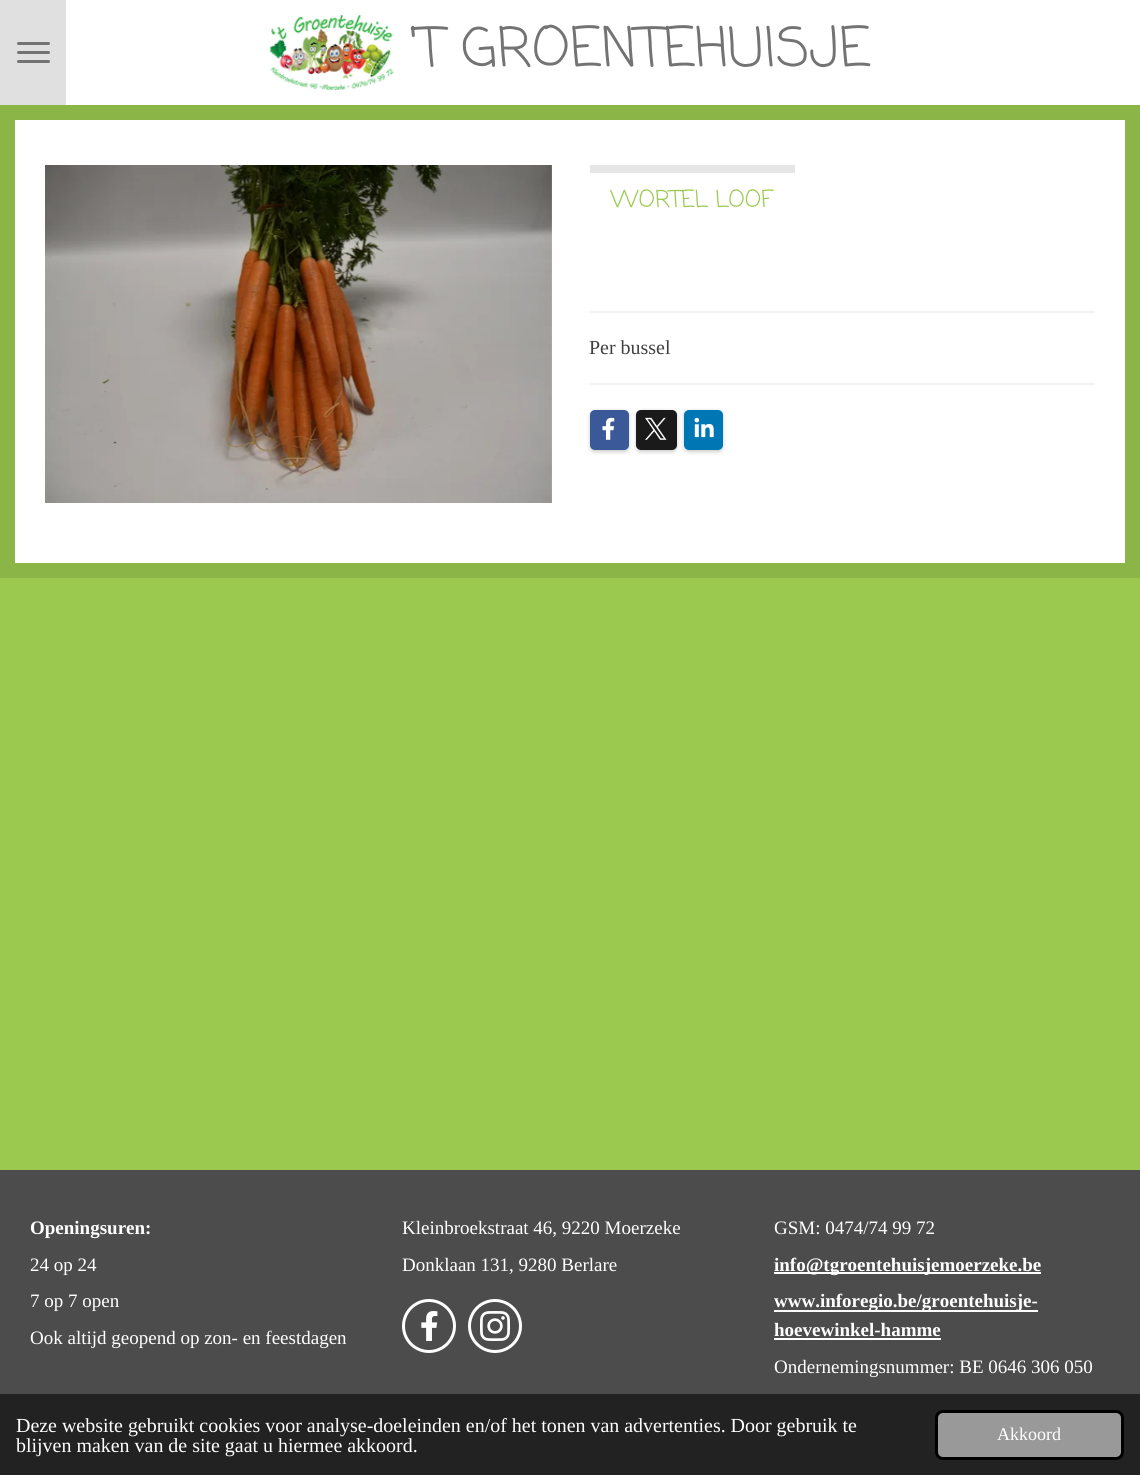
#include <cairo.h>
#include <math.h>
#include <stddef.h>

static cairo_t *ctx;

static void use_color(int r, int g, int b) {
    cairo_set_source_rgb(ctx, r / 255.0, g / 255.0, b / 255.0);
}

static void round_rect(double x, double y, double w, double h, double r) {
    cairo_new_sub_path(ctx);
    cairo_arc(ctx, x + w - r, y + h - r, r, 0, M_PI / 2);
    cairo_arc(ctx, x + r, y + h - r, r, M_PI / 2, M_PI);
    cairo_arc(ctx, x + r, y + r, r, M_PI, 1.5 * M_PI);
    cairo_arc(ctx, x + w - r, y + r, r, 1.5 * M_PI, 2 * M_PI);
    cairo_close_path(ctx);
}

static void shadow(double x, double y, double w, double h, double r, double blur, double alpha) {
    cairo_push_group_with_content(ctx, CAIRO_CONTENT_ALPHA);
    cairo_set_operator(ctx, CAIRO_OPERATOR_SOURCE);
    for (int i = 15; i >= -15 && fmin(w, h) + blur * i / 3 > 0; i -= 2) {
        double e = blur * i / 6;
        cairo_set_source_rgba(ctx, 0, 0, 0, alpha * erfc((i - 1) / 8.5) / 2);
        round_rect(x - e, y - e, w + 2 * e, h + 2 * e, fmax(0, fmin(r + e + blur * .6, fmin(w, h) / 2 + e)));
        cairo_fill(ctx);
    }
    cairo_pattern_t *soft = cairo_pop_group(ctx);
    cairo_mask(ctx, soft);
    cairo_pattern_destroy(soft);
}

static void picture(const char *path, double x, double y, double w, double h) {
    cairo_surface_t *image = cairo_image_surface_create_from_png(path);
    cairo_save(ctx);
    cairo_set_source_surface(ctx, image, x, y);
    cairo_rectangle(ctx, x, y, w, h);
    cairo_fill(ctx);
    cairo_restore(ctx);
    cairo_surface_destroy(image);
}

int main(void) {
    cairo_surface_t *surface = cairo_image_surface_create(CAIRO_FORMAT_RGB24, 1140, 1475);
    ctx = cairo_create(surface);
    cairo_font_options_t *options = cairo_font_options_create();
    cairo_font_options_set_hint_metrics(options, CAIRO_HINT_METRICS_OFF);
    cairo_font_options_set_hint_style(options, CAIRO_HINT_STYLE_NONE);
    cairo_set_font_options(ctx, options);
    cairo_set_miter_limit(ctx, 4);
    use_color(155, 201, 79);
    cairo_paint(ctx);
    use_color(224, 224, 224);
    cairo_rectangle(ctx, 0, 0, 66, 105);
    cairo_fill(ctx);
    use_color(115, 115, 115);
    round_rect(17, 51, 33, 3, 1.5);
    cairo_fill(ctx);
    round_rect(17, 42, 33, 3, 1.5);
    cairo_fill(ctx);
    round_rect(17, 60, 33, 3, 1.5);
    cairo_fill(ctx);
    use_color(255, 255, 255);
    cairo_rectangle(ctx, 66, 0, 1074, 105);
    cairo_fill(ctx);
    picture("img1.png", 270, 15, 125, 75);
    cairo_select_font_face(ctx, "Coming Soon", CAIRO_FONT_SLANT_NORMAL, CAIRO_FONT_WEIGHT_NORMAL);
    cairo_set_font_size(ctx, 54);
    use_color(115, 115, 115);
    cairo_move_to(ctx, 410, 66);
    cairo_show_text(ctx, "'T GROENTEHUISJE");
    use_color(140, 181, 71);
    cairo_rectangle(ctx, 0, 105, 1140, 473);
    cairo_fill(ctx);
    use_color(255, 255, 255);
    cairo_rectangle(ctx, 15, 120, 1110, 443);
    cairo_fill(ctx);
    picture("img2.png", 45, 165, 507, 338);
    use_color(230, 230, 230);
    cairo_rectangle(ctx, 590, 165, 205, 8);
    cairo_fill(ctx);
    cairo_set_font_size(ctx, 23.25);
    use_color(155, 201, 79);
    cairo_move_to(ctx, 611, 207);
    cairo_show_text(ctx, "WORTEL LOOF");
    use_color(242, 242, 242);
    cairo_rectangle(ctx, 590, 311, 505, 2);
    cairo_fill(ctx);
    cairo_select_font_face(ctx, "Liberation Serif", CAIRO_FONT_SLANT_NORMAL, CAIRO_FONT_WEIGHT_NORMAL);
    cairo_set_font_size(ctx, 19.95);
    use_color(64, 64, 64);
    cairo_move_to(ctx, 589, 354);
    cairo_show_text(ctx, "Per bussel");
    use_color(242, 242, 242);
    cairo_rectangle(ctx, 590, 383, 505, 2);
    cairo_fill(ctx);
    use_color(0, 0, 0);
    shadow(590, 411, 39, 41, 5, 2, 0.2);
    use_color(59, 89, 152);
    round_rect(590, 410, 39, 40, 5);
    cairo_fill(ctx);
    picture("img3.png", 602, 417, 13, 23);
    use_color(0, 0, 0);
    shadow(636, 411, 41, 41, 5, 2, 0.2);
    use_color(26, 26, 26);
    round_rect(636, 410, 41, 40, 5);
    cairo_fill(ctx);
    picture("img4.png", 645, 417, 22, 23);
    use_color(0, 0, 0);
    shadow(684, 411, 39, 41, 5, 2, 0.2);
    use_color(0, 119, 181);
    round_rect(684, 410, 39, 40, 5);
    cairo_fill(ctx);
    picture("img5.png", 694, 417, 20, 21);
    use_color(76, 76, 76);
    cairo_rectangle(ctx, 0, 1170, 1140, 224);
    cairo_fill(ctx);
    cairo_select_font_face(ctx, "Liberation Serif", CAIRO_FONT_SLANT_NORMAL, CAIRO_FONT_WEIGHT_BOLD);
    cairo_set_font_size(ctx, 19);
    use_color(255, 255, 255);
    cairo_move_to(ctx, 30, 1234);
    cairo_show_text(ctx, "Openingsuren:");
    cairo_select_font_face(ctx, "Liberation Serif", CAIRO_FONT_SLANT_NORMAL, CAIRO_FONT_WEIGHT_NORMAL);
    cairo_move_to(ctx, 30, 1271);
    cairo_show_text(ctx, "24 op 24");
    cairo_move_to(ctx, 30, 1307);
    cairo_show_text(ctx, "7 op 7 open");
    cairo_move_to(ctx, 30, 1344);
    cairo_show_text(ctx, "Ook altijd geopend op zon- en feestdagen");
    cairo_move_to(ctx, 402, 1234);
    cairo_show_text(ctx, "Kleinbroekstraat 46, 9220 Moerzeke");
    cairo_move_to(ctx, 402, 1271);
    cairo_show_text(ctx, "Donklaan 131, 9280 Berlare");
    cairo_new_path(ctx);
    cairo_arc(ctx, 429, 1326, 25.5, 0, 2 * M_PI);
    cairo_set_line_width(ctx, 3);
    cairo_stroke(ctx);
    picture("img6.png", 421, 1311, 17, 30);
    cairo_arc(ctx, 495, 1326, 25.5, 0, 2 * M_PI);
    cairo_stroke(ctx);
    picture("img7.png", 480, 1311, 30, 30);
    cairo_move_to(ctx, 774, 1234);
    cairo_show_text(ctx, "GSM: 0474/74 99 72");
    cairo_rectangle(ctx, 774, 1272, 267, 2);
    cairo_fill(ctx);
    cairo_select_font_face(ctx, "Liberation Serif", CAIRO_FONT_SLANT_NORMAL, CAIRO_FONT_WEIGHT_BOLD);
    cairo_move_to(ctx, 774, 1271);
    cairo_show_text(ctx, "info@tgroentehuisjemoerzeke.be");
    cairo_rectangle(ctx, 774, 1310, 264, 2);
    cairo_fill(ctx);
    cairo_move_to(ctx, 774, 1307);
    cairo_show_text(ctx, "www.inforegio.be/groentehuisje-");
    cairo_move_to(ctx, 774, 1336);
    cairo_show_text(ctx, "hoevewinkel-hamme");
    cairo_rectangle(ctx, 774, 1338, 167, 2);
    cairo_fill(ctx);
    cairo_select_font_face(ctx, "Liberation Serif", CAIRO_FONT_SLANT_NORMAL, CAIRO_FONT_WEIGHT_NORMAL);
    cairo_move_to(ctx, 774, 1373);
    cairo_show_text(ctx, "Ondernemingsnummer: BE 0646 306 050");
    use_color(34, 34, 34);
    cairo_rectangle(ctx, 0, 1394, 1140, 81);
    cairo_fill(ctx);
    cairo_set_font_size(ctx, 19.95);
    use_color(255, 255, 255);
    cairo_move_to(ctx, 16, 1432);
    cairo_show_text(ctx, "Deze website gebruikt cookies voor analyse-doeleinden en/of het tonen van advertenties. Door gebruik te");
    cairo_move_to(ctx, 16, 1452);
    cairo_show_text(ctx, "blijven maken van de site gaat u hiermee akkoord.");
    use_color(153, 153, 153);
    round_rect(936.5, 1411.5, 186, 47, 6.5);
    cairo_fill_preserve(ctx);
    use_color(0, 0, 0);
    cairo_stroke(ctx);
    cairo_set_font_size(ctx, 18);
    use_color(255, 255, 255);
    cairo_move_to(ctx, 997, 1440);
    cairo_show_text(ctx, "Akkoord");
    cairo_surface_write_to_png(surface, "result.png");
    cairo_font_options_destroy(options);
    cairo_destroy(ctx);
    cairo_surface_destroy(surface);
    return 0;
}
